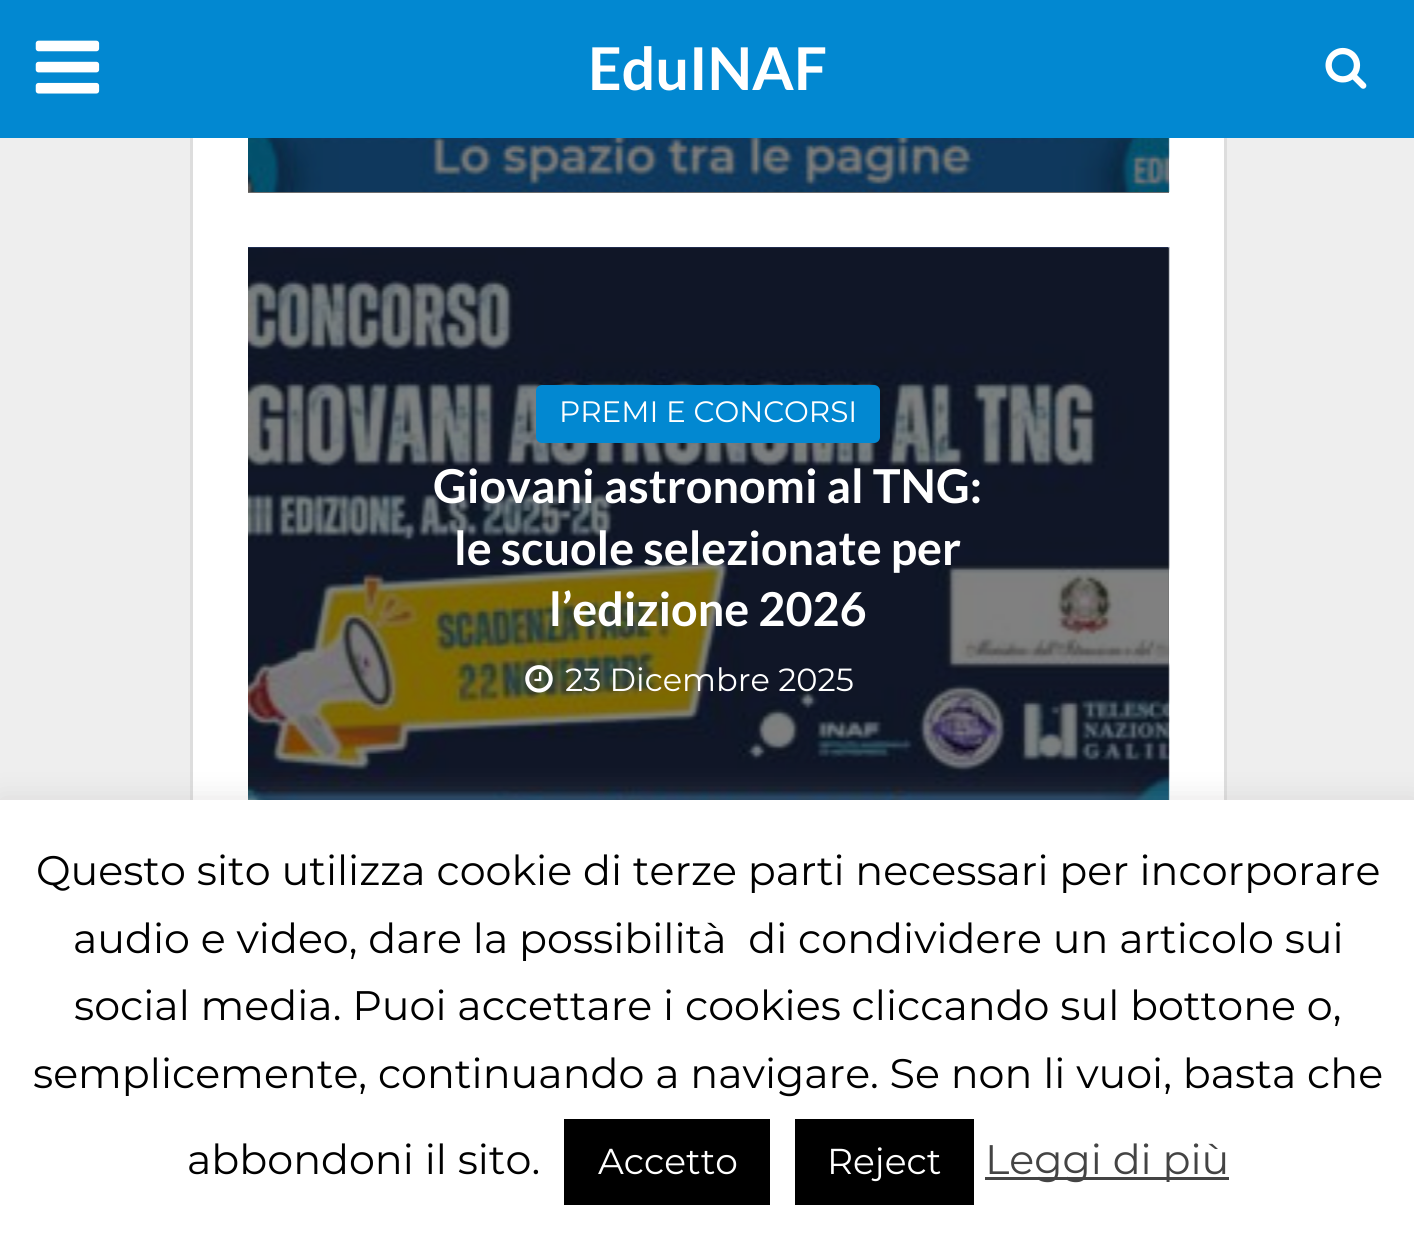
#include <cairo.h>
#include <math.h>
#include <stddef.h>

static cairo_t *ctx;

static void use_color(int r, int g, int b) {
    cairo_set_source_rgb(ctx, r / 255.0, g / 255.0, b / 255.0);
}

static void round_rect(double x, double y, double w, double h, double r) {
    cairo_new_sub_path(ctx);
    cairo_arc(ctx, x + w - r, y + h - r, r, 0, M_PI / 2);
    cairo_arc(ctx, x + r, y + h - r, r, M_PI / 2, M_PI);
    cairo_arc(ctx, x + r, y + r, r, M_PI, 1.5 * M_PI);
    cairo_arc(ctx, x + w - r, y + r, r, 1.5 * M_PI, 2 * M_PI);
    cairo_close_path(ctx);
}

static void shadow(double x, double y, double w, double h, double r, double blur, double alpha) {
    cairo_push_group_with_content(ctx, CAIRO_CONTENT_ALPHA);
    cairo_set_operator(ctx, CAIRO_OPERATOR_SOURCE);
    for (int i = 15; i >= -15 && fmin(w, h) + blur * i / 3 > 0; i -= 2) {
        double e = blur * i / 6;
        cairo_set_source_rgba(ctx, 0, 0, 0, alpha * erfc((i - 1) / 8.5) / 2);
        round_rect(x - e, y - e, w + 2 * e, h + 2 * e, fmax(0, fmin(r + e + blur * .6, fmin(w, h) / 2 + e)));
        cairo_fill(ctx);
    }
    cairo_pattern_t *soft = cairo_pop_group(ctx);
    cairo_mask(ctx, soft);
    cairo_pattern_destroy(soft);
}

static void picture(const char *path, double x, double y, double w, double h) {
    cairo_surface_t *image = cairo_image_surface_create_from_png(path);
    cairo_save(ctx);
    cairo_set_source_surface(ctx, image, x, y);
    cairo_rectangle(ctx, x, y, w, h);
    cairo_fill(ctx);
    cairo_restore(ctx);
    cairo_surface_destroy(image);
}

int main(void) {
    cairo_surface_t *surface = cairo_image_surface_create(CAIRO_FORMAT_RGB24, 1414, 1235);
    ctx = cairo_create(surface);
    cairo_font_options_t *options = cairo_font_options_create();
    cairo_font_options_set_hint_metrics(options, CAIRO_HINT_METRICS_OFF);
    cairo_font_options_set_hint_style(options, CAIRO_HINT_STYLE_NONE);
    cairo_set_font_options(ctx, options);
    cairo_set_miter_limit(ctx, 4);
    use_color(238, 238, 238);
    cairo_paint(ctx);
    cairo_rectangle(ctx, 191.5, -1.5, 1034, 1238);
    use_color(221, 221, 221);
    cairo_set_line_width(ctx, 3);
    cairo_stroke(ctx);
    use_color(2, 136, 209);
    cairo_rectangle(ctx, 0, 0, 1414, 138);
    cairo_fill(ctx);
    picture("img1.png", 35, 40, 65, 54);
    cairo_select_font_face(ctx, "Lato", CAIRO_FONT_SLANT_NORMAL, CAIRO_FONT_WEIGHT_BOLD);
    cairo_set_font_size(ctx, 59);
    use_color(255, 255, 255);
    cairo_move_to(ctx, 588, 90);
    cairo_show_text(ctx, "EduINAF");
    picture("img2.png", 1325, 47, 42, 42);
    cairo_rectangle(ctx, 193, 138, 1031, 662);
    cairo_fill(ctx);
    use_color(110, 110, 110);
    cairo_rectangle(ctx, 248, 138, 921, 55);
    cairo_fill(ctx);
    picture("img3.png", 248, 138, 922, 54);
    cairo_rectangle(ctx, 1168, 248, 1, 552);
    cairo_fill(ctx);
    picture("img4.png", 248, 247, 922, 553);
    use_color(2, 136, 209);
    round_rect(536, 385, 344, 58, 6);
    cairo_fill(ctx);
    cairo_select_font_face(ctx, "Montserrat Thin", CAIRO_FONT_SLANT_NORMAL, CAIRO_FONT_WEIGHT_NORMAL);
    cairo_set_font_size(ctx, 29.5);
    use_color(255, 255, 255);
    cairo_move_to(ctx, 559, 422);
    cairo_show_text(ctx, "PREMI E CONCORSI");
    cairo_select_font_face(ctx, "Lato", CAIRO_FONT_SLANT_NORMAL, CAIRO_FONT_WEIGHT_BOLD);
    cairo_set_font_size(ctx, 46.75);
    cairo_move_to(ctx, 433, 503);
    cairo_show_text(ctx, "Giovani astronomi al TNG:");
    cairo_move_to(ctx, 454, 565);
    cairo_show_text(ctx, "le scuole selezionate per");
    cairo_move_to(ctx, 549, 626);
    cairo_show_text(ctx, "l’edizione 2026");
    picture("img5.png", 525, 665, 28, 28);
    cairo_select_font_face(ctx, "Montserrat Thin", CAIRO_FONT_SLANT_NORMAL, CAIRO_FONT_WEIGHT_NORMAL);
    cairo_set_font_size(ctx, 32);
    cairo_move_to(ctx, 565, 691);
    cairo_show_text(ctx, "23 Dicembre 2025");
    use_color(172, 171, 171);
    shadow(0, 798, 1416, 437, 0, 14, 0.3);
    use_color(255, 255, 255);
    cairo_rectangle(ctx, 0, 800, 1414, 435);
    cairo_fill(ctx);
    cairo_set_font_size(ctx, 41.25);
    use_color(0, 0, 0);
    cairo_move_to(ctx, 36, 885);
    cairo_show_text(ctx, "Questo sito utilizza cookie di terze parti necessari per incorporare");
    cairo_move_to(ctx, 73, 953);
    cairo_show_text(ctx, "audio e video, dare la possibilità  di condividere un articolo sui");
    cairo_move_to(ctx, 74, 1020);
    cairo_show_text(ctx, "social media. Puoi accettare i cookies cliccando sul bottone o,");
    cairo_move_to(ctx, 33, 1088);
    cairo_show_text(ctx, "semplicemente, continuando a navigare. Se non li vuoi, basta che");
    cairo_move_to(ctx, 187, 1174);
    cairo_show_text(ctx, "abbondoni il sito.");
    cairo_rectangle(ctx, 564, 1119, 206, 86);
    cairo_fill(ctx);
    cairo_set_font_size(ctx, 36);
    use_color(255, 255, 255);
    cairo_move_to(ctx, 598, 1174);
    cairo_show_text(ctx, "Accetto");
    use_color(0, 0, 0);
    cairo_rectangle(ctx, 795, 1119, 179, 86);
    cairo_fill(ctx);
    use_color(255, 255, 255);
    cairo_move_to(ctx, 827, 1174);
    cairo_show_text(ctx, "Reject");
    use_color(68, 68, 68);
    cairo_rectangle(ctx, 985, 1177, 244, 3);
    cairo_fill(ctx);
    cairo_set_font_size(ctx, 41.25);
    cairo_move_to(ctx, 985, 1174);
    cairo_show_text(ctx, "Leggi di più");
    cairo_surface_write_to_png(surface, "result.png");
    cairo_font_options_destroy(options);
    cairo_destroy(ctx);
    cairo_surface_destroy(surface);
    return 0;
}
